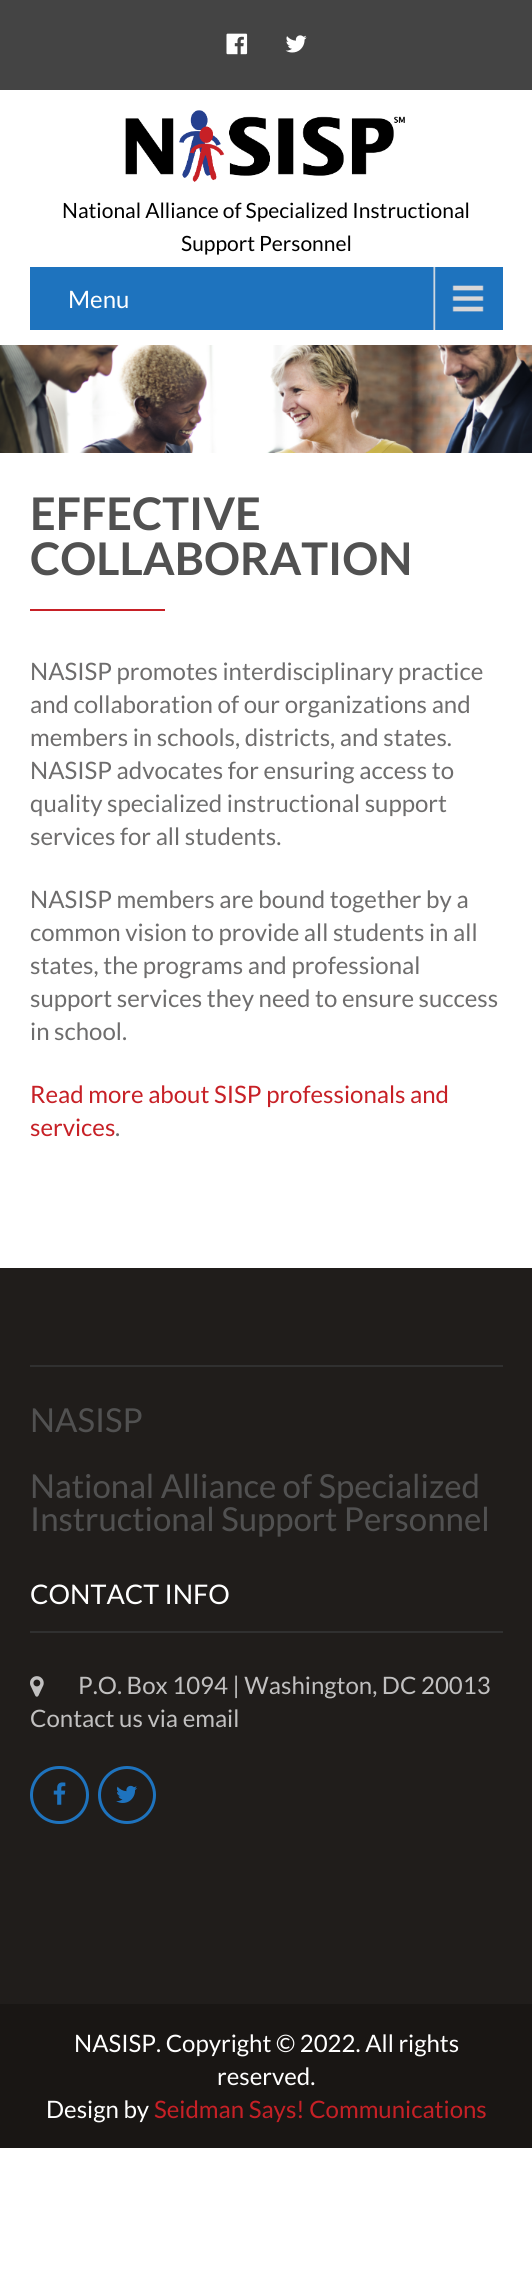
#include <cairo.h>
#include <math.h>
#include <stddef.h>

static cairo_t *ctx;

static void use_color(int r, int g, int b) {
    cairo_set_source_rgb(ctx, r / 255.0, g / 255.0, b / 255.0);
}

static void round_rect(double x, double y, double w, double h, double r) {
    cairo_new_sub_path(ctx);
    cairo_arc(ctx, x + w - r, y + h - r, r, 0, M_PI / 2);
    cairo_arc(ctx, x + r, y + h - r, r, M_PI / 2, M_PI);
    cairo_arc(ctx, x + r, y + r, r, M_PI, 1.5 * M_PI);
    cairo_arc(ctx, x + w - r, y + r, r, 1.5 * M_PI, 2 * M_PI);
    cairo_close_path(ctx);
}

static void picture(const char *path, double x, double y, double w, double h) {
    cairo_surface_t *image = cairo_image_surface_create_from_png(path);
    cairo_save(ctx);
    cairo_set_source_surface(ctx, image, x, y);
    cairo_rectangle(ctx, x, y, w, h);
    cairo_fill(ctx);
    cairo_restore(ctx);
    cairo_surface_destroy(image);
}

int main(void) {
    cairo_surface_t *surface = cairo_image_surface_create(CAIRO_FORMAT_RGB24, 532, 2274);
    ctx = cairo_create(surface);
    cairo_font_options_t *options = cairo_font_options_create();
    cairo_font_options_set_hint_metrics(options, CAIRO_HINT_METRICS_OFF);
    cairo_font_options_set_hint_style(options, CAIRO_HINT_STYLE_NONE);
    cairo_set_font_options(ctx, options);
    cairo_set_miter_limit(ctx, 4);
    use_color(255, 255, 255);
    cairo_paint(ctx);
    use_color(68, 68, 68);
    cairo_rectangle(ctx, 0, 0, 532, 90);
    cairo_fill(ctx);
    picture("img1.png", 226, 33, 22, 22);
    picture("img2.png", 285, 35, 22, 18);
    picture("img3.png", 125, 110, 280, 72);
    cairo_select_font_face(ctx, "Lato", CAIRO_FONT_SLANT_NORMAL, CAIRO_FONT_WEIGHT_NORMAL);
    cairo_set_font_size(ctx, 21);
    use_color(0, 0, 0);
    cairo_move_to(ctx, 62, 218);
    cairo_show_text(ctx, "National Alliance of Specialized Instructional");
    cairo_move_to(ctx, 181, 251);
    cairo_show_text(ctx, "Support Personnel");
    use_color(30, 115, 190);
    cairo_rectangle(ctx, 30, 267, 473, 63);
    cairo_fill(ctx);
    picture("img4.png", 433, 267, 51, 63);
    cairo_set_font_size(ctx, 24);
    use_color(255, 255, 255);
    cairo_move_to(ctx, 68, 308);
    cairo_show_text(ctx, "Menu");
    picture("img5.png", 0, 345, 532, 108);
    cairo_select_font_face(ctx, "Lato", CAIRO_FONT_SLANT_NORMAL, CAIRO_FONT_WEIGHT_BOLD);
    cairo_set_font_size(ctx, 45);
    use_color(81, 81, 81);
    cairo_move_to(ctx, 30, 530);
    cairo_show_text(ctx, "EFFECTIVE");
    cairo_move_to(ctx, 30, 575);
    cairo_show_text(ctx, "COLLABORATION");
    use_color(199, 32, 38);
    cairo_rectangle(ctx, 30, 609, 135, 2);
    cairo_fill(ctx);
    cairo_select_font_face(ctx, "Lato", CAIRO_FONT_SLANT_NORMAL, CAIRO_FONT_WEIGHT_NORMAL);
    cairo_set_font_size(ctx, 24);
    use_color(110, 109, 109);
    cairo_move_to(ctx, 30, 680);
    cairo_show_text(ctx, "NASISP promotes interdisciplinary practice");
    cairo_move_to(ctx, 30, 713);
    cairo_show_text(ctx, "and collaboration of our organizations and");
    cairo_move_to(ctx, 30, 746);
    cairo_show_text(ctx, "members in schools, districts, and states.");
    cairo_move_to(ctx, 30, 779);
    cairo_show_text(ctx, "NASISP advocates for ensuring access to");
    cairo_move_to(ctx, 30, 812);
    cairo_show_text(ctx, "quality specialized instructional support");
    cairo_move_to(ctx, 30, 845);
    cairo_show_text(ctx, "services for all students.");
    cairo_move_to(ctx, 30, 908);
    cairo_show_text(ctx, "NASISP members are bound together by a");
    cairo_move_to(ctx, 30, 941);
    cairo_show_text(ctx, "common vision to provide all students in all");
    cairo_move_to(ctx, 30, 974);
    cairo_show_text(ctx, "states, the programs and professional");
    cairo_move_to(ctx, 30, 1007);
    cairo_show_text(ctx, "support services they need to ensure success");
    cairo_move_to(ctx, 30, 1040);
    cairo_show_text(ctx, "in school.");
    use_color(199, 32, 38);
    cairo_move_to(ctx, 30, 1103);
    cairo_show_text(ctx, "Read more about SISP professionals and");
    cairo_move_to(ctx, 30, 1136);
    cairo_show_text(ctx, "services");
    use_color(110, 109, 109);
    cairo_move_to(ctx, 115, 1136);
    cairo_show_text(ctx, ".");
    use_color(32, 29, 27);
    cairo_rectangle(ctx, 0, 1268, 532, 736);
    cairo_fill(ctx);
    use_color(48, 48, 48);
    cairo_rectangle(ctx, 30, 1365, 473, 2);
    cairo_fill(ctx);
    cairo_set_font_size(ctx, 33);
    use_color(81, 81, 81);
    cairo_move_to(ctx, 30, 1432);
    cairo_show_text(ctx, "NASISP");
    cairo_move_to(ctx, 30, 1498);
    cairo_show_text(ctx, "National Alliance of Specialized");
    cairo_move_to(ctx, 30, 1531);
    cairo_show_text(ctx, "Instructional Support Personnel");
    use_color(48, 48, 48);
    cairo_rectangle(ctx, 30, 1631, 473, 2);
    cairo_fill(ctx);
    cairo_set_font_size(ctx, 27);
    use_color(255, 255, 255);
    cairo_move_to(ctx, 30, 1604);
    cairo_show_text(ctx, "CONTACT INFO");
    picture("img6.png", 30, 1676, 14, 21);
    cairo_set_font_size(ctx, 24);
    use_color(193, 192, 192);
    cairo_move_to(ctx, 78, 1694);
    cairo_show_text(ctx, "P.O. Box 1094 | Washington, DC 20013");
    cairo_move_to(ctx, 30, 1727);
    cairo_show_text(ctx, "Contact us via email");
    round_rect(31.5, 1767.5, 56, 55, 27.5);
    use_color(30, 115, 190);
    cairo_set_line_width(ctx, 3);
    cairo_stroke(ctx);
    picture("img7.png", 53, 1782, 13, 23);
    cairo_arc(ctx, 127, 1795, 27.5, 0, 2 * M_PI);
    cairo_stroke(ctx);
    picture("img8.png", 116, 1785, 21, 18);
    use_color(25, 22, 20);
    cairo_rectangle(ctx, 0, 2004, 532, 144);
    cairo_fill(ctx);
    use_color(255, 255, 255);
    cairo_move_to(ctx, 74, 2052);
    cairo_show_text(ctx, "NASISP. Copyright © 2022. All rights");
    cairo_move_to(ctx, 217, 2085);
    cairo_show_text(ctx, "reserved.");
    cairo_move_to(ctx, 46, 2118);
    cairo_show_text(ctx, "Design by");
    use_color(199, 32, 38);
    cairo_move_to(ctx, 154, 2118);
    cairo_show_text(ctx, "Seidman Says! Communications");
    cairo_surface_write_to_png(surface, "result.png");
    cairo_font_options_destroy(options);
    cairo_destroy(ctx);
    cairo_surface_destroy(surface);
    return 0;
}
